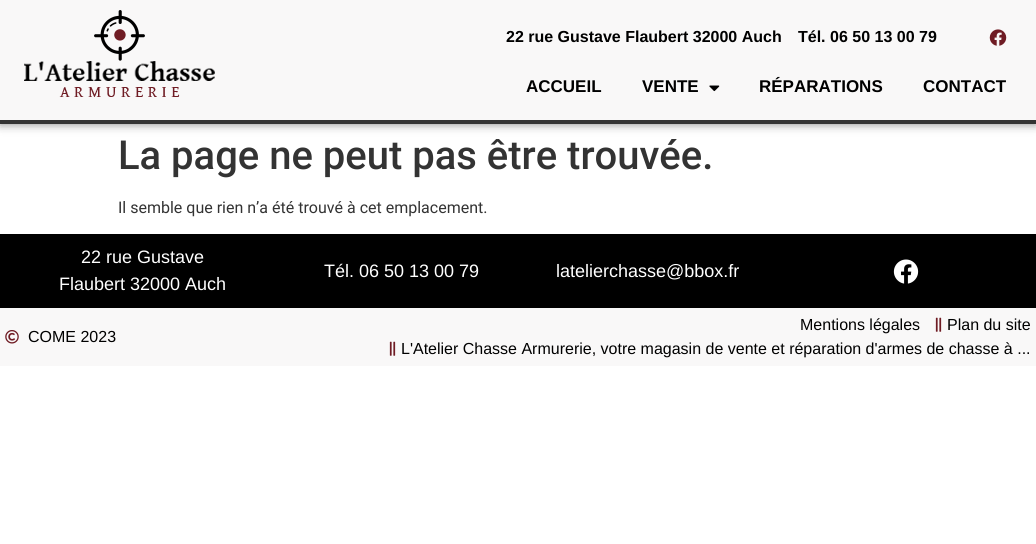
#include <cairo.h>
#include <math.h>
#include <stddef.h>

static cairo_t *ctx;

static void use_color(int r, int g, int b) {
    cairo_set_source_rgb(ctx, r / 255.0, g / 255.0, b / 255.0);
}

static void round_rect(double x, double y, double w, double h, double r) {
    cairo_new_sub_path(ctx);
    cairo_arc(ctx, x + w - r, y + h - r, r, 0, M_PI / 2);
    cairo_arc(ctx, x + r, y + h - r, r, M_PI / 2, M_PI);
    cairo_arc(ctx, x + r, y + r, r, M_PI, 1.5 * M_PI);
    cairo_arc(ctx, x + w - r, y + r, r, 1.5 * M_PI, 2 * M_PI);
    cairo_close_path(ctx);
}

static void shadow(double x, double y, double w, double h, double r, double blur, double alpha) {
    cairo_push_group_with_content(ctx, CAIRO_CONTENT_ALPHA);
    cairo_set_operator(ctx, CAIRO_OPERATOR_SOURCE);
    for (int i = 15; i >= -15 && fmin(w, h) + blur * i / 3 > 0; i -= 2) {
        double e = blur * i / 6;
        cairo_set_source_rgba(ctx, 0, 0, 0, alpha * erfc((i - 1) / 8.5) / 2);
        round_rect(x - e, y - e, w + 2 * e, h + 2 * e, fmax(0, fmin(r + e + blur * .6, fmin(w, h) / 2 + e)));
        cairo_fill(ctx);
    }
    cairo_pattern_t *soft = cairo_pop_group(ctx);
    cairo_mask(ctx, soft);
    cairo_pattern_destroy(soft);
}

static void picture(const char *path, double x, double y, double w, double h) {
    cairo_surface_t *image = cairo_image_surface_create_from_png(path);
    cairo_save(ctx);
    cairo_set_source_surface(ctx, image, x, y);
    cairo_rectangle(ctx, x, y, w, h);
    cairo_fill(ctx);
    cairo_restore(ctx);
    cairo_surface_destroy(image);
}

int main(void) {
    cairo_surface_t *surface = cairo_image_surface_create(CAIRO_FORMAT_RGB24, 1036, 544);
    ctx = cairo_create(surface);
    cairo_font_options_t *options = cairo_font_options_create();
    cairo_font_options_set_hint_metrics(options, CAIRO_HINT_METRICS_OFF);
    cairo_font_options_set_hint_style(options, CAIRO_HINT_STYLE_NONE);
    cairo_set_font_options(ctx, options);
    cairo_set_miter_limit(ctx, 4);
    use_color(255, 255, 255);
    cairo_paint(ctx);
    use_color(0, 0, 0);
    shadow(0, 0, 1036, 124, 0, 5, 0.5);
    use_color(249, 248, 248);
    cairo_rectangle(ctx, 0, 0, 1036, 120);
    cairo_fill(ctx);
    use_color(51, 51, 51);
    cairo_rectangle(ctx, 0, 120, 1036, 4);
    cairo_fill(ctx);
    picture("img1.png", 24, 10, 191, 87);
    cairo_select_font_face(ctx, "Liberation Sans", CAIRO_FONT_SLANT_NORMAL, CAIRO_FONT_WEIGHT_BOLD);
    cairo_set_font_size(ctx, 16);
    use_color(0, 0, 0);
    cairo_move_to(ctx, 506, 42);
    cairo_show_text(ctx, "22 rue Gustave Flaubert 32000 Auch");
    cairo_move_to(ctx, 798, 42);
    cairo_show_text(ctx, "Tél. 06 50 13 00 79");
    picture("img2.png", 989, 29, 18, 17);
    cairo_set_font_size(ctx, 17);
    cairo_move_to(ctx, 526, 92);
    cairo_show_text(ctx, "ACCUEIL");
    cairo_move_to(ctx, 642, 92);
    cairo_show_text(ctx, "VENTE");
    picture("img3.png", 709, 85, 11, 7);
    cairo_move_to(ctx, 759, 92);
    cairo_show_text(ctx, "RÉPARATIONS");
    cairo_move_to(ctx, 923, 92);
    cairo_show_text(ctx, "CONTACT");
    cairo_select_font_face(ctx, "Roboto Medium", CAIRO_FONT_SLANT_NORMAL, CAIRO_FONT_WEIGHT_NORMAL);
    cairo_set_font_size(ctx, 40);
    use_color(51, 51, 51);
    cairo_move_to(ctx, 118, 169);
    cairo_show_text(ctx, "La page ne peut pas être trouvée.");
    cairo_select_font_face(ctx, "Roboto", CAIRO_FONT_SLANT_NORMAL, CAIRO_FONT_WEIGHT_NORMAL);
    cairo_set_font_size(ctx, 16);
    cairo_move_to(ctx, 118, 213);
    cairo_show_text(ctx, "Il semble que rien n’a été trouvé à cet emplacement.");
    use_color(0, 0, 0);
    cairo_rectangle(ctx, 0, 234, 1036, 74);
    cairo_fill(ctx);
    cairo_select_font_face(ctx, "Liberation Sans", CAIRO_FONT_SLANT_NORMAL, CAIRO_FONT_WEIGHT_NORMAL);
    cairo_set_font_size(ctx, 18);
    use_color(255, 255, 255);
    cairo_move_to(ctx, 81, 263);
    cairo_show_text(ctx, "22 rue Gustave");
    cairo_move_to(ctx, 59, 290);
    cairo_show_text(ctx, "Flaubert 32000 Auch");
    cairo_move_to(ctx, 324, 277);
    cairo_show_text(ctx, "Tél. 06 50 13 00 79");
    cairo_move_to(ctx, 556, 277);
    cairo_show_text(ctx, "latelierchasse@bbox.fr");
    picture("img4.png", 893, 259, 26, 25);
    use_color(249, 248, 248);
    cairo_rectangle(ctx, 0, 308, 1036, 58);
    cairo_fill(ctx);
    picture("img5.png", 5, 330, 14, 14);
    cairo_set_font_size(ctx, 16);
    use_color(0, 0, 0);
    cairo_move_to(ctx, 28, 342);
    cairo_show_text(ctx, "COME 2023");
    cairo_move_to(ctx, 800, 330);
    cairo_show_text(ctx, "Mentions légales");
    picture("img6.png", 935, 317, 7, 15);
    cairo_move_to(ctx, 947, 330);
    cairo_show_text(ctx, "Plan du site");
    picture("img6.png", 389, 341, 7, 15);
    cairo_move_to(ctx, 401, 354);
    cairo_show_text(ctx, "L'Atelier Chasse Armurerie, votre magasin de vente et réparation d'armes de chasse à ...");
    cairo_surface_write_to_png(surface, "result.png");
    cairo_font_options_destroy(options);
    cairo_destroy(ctx);
    cairo_surface_destroy(surface);
    return 0;
}
